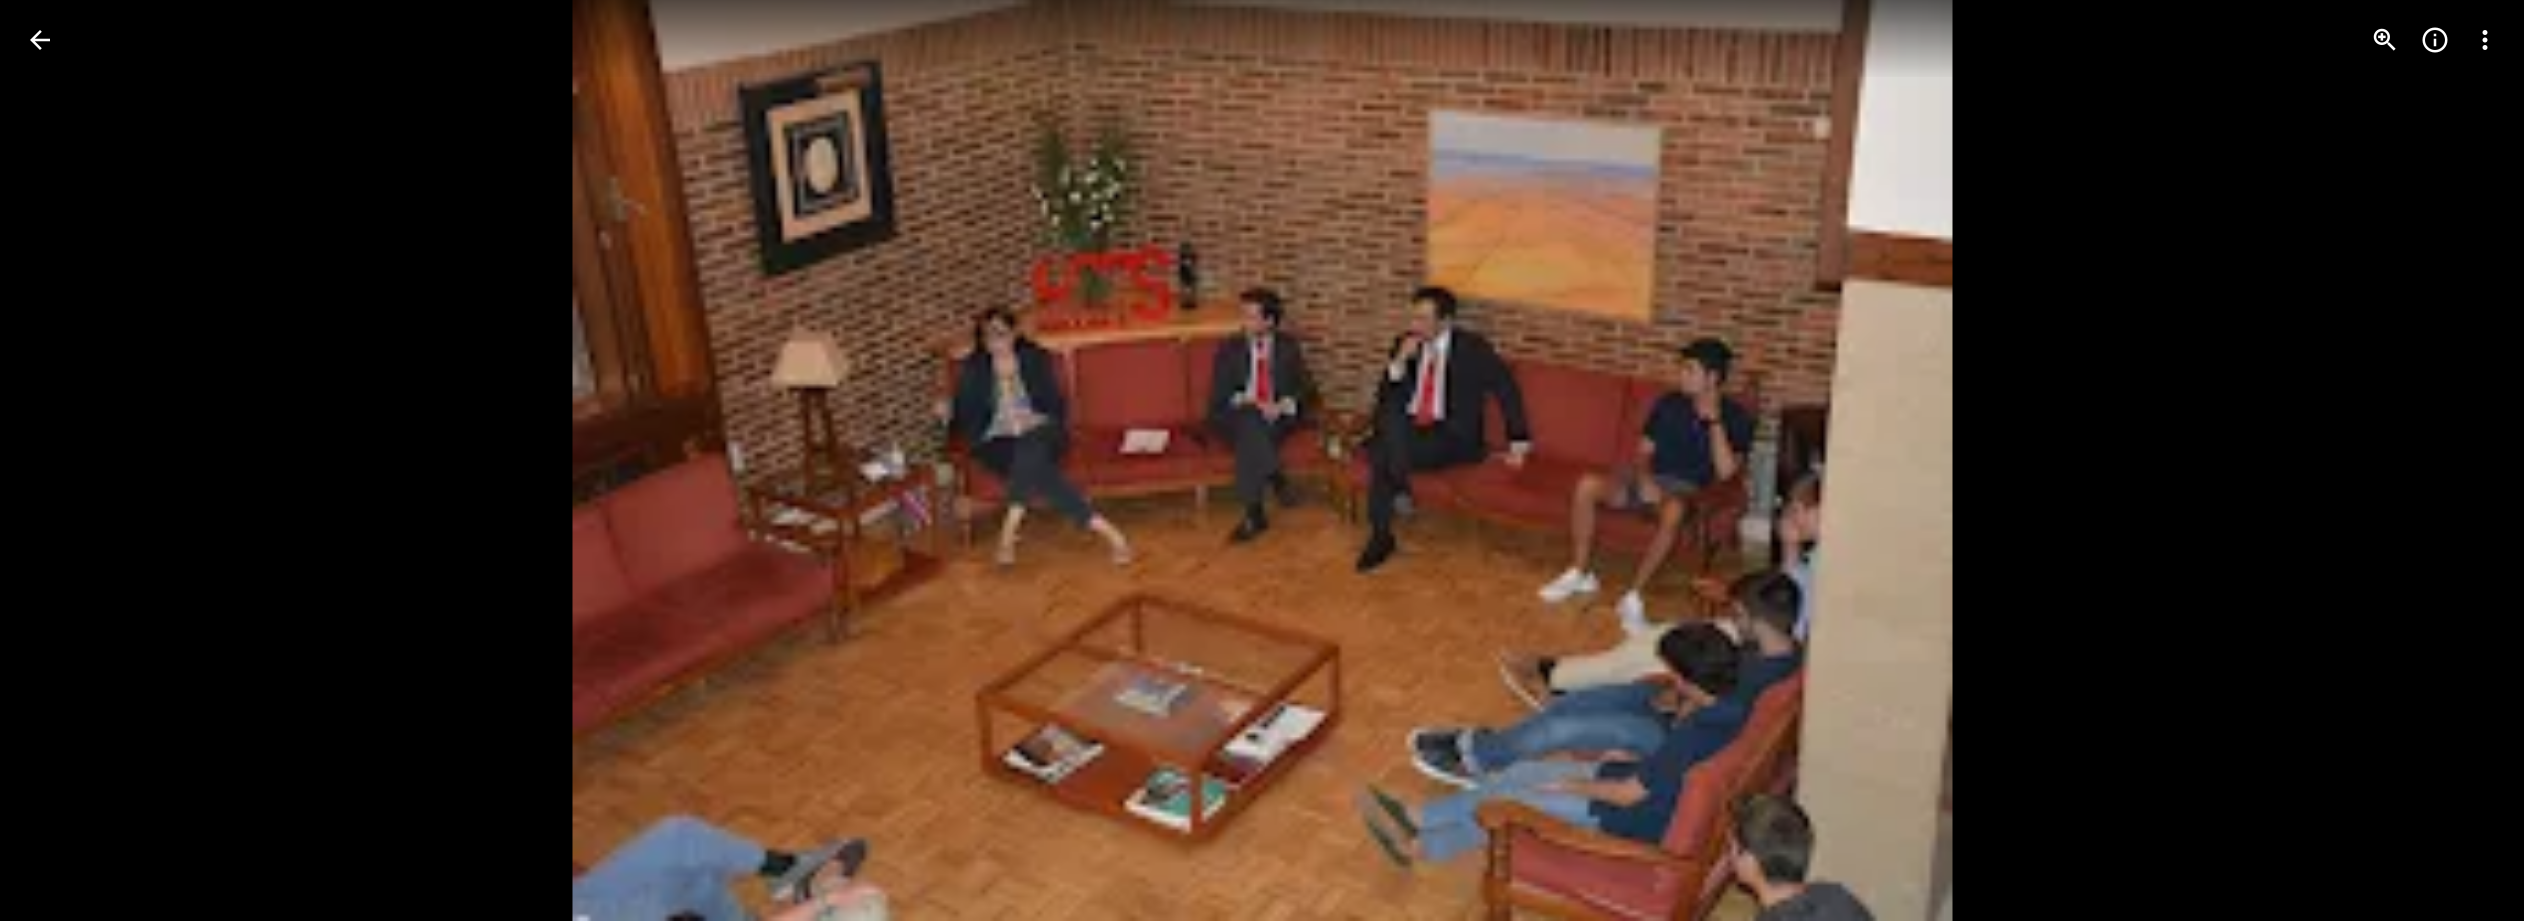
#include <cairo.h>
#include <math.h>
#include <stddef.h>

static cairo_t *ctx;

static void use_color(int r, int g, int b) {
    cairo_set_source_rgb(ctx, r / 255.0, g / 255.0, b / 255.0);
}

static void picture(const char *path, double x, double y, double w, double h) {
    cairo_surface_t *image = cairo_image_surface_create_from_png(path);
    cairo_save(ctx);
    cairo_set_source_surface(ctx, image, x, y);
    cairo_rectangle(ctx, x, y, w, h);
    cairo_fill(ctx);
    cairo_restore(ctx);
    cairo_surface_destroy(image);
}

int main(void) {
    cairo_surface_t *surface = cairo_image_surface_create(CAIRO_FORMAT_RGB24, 2524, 921);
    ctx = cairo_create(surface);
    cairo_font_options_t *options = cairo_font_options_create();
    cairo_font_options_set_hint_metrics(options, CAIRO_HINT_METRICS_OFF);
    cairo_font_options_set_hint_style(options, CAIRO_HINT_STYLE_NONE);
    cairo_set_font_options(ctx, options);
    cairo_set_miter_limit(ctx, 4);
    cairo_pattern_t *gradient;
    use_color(0, 0, 0);
    cairo_paint(ctx);
    picture("img5.png", 572, 0, 1381, 921);
    gradient = cairo_pattern_create_linear(1263, 0, 1263, 80);
    cairo_pattern_add_color_stop_rgba(gradient, 0, 0, 0, 0, 0.6);
    cairo_pattern_add_color_stop_rgba(gradient, 1, 0, 0, 0, 0);
    cairo_set_source(ctx, gradient);
    cairo_pattern_destroy(gradient);
    cairo_rectangle(ctx, 572, 0, 1381, 77);
    cairo_fill(ctx);
    picture("img1.png", 30, 30, 20, 20);
    picture("img2.png", 2373, 28, 23, 23);
    picture("img3.png", 2422, 27, 26, 26);
    picture("img4.png", 2482, 30, 6, 20);
    cairo_surface_write_to_png(surface, "result.png");
    cairo_font_options_destroy(options);
    cairo_destroy(ctx);
    cairo_surface_destroy(surface);
    return 0;
}
